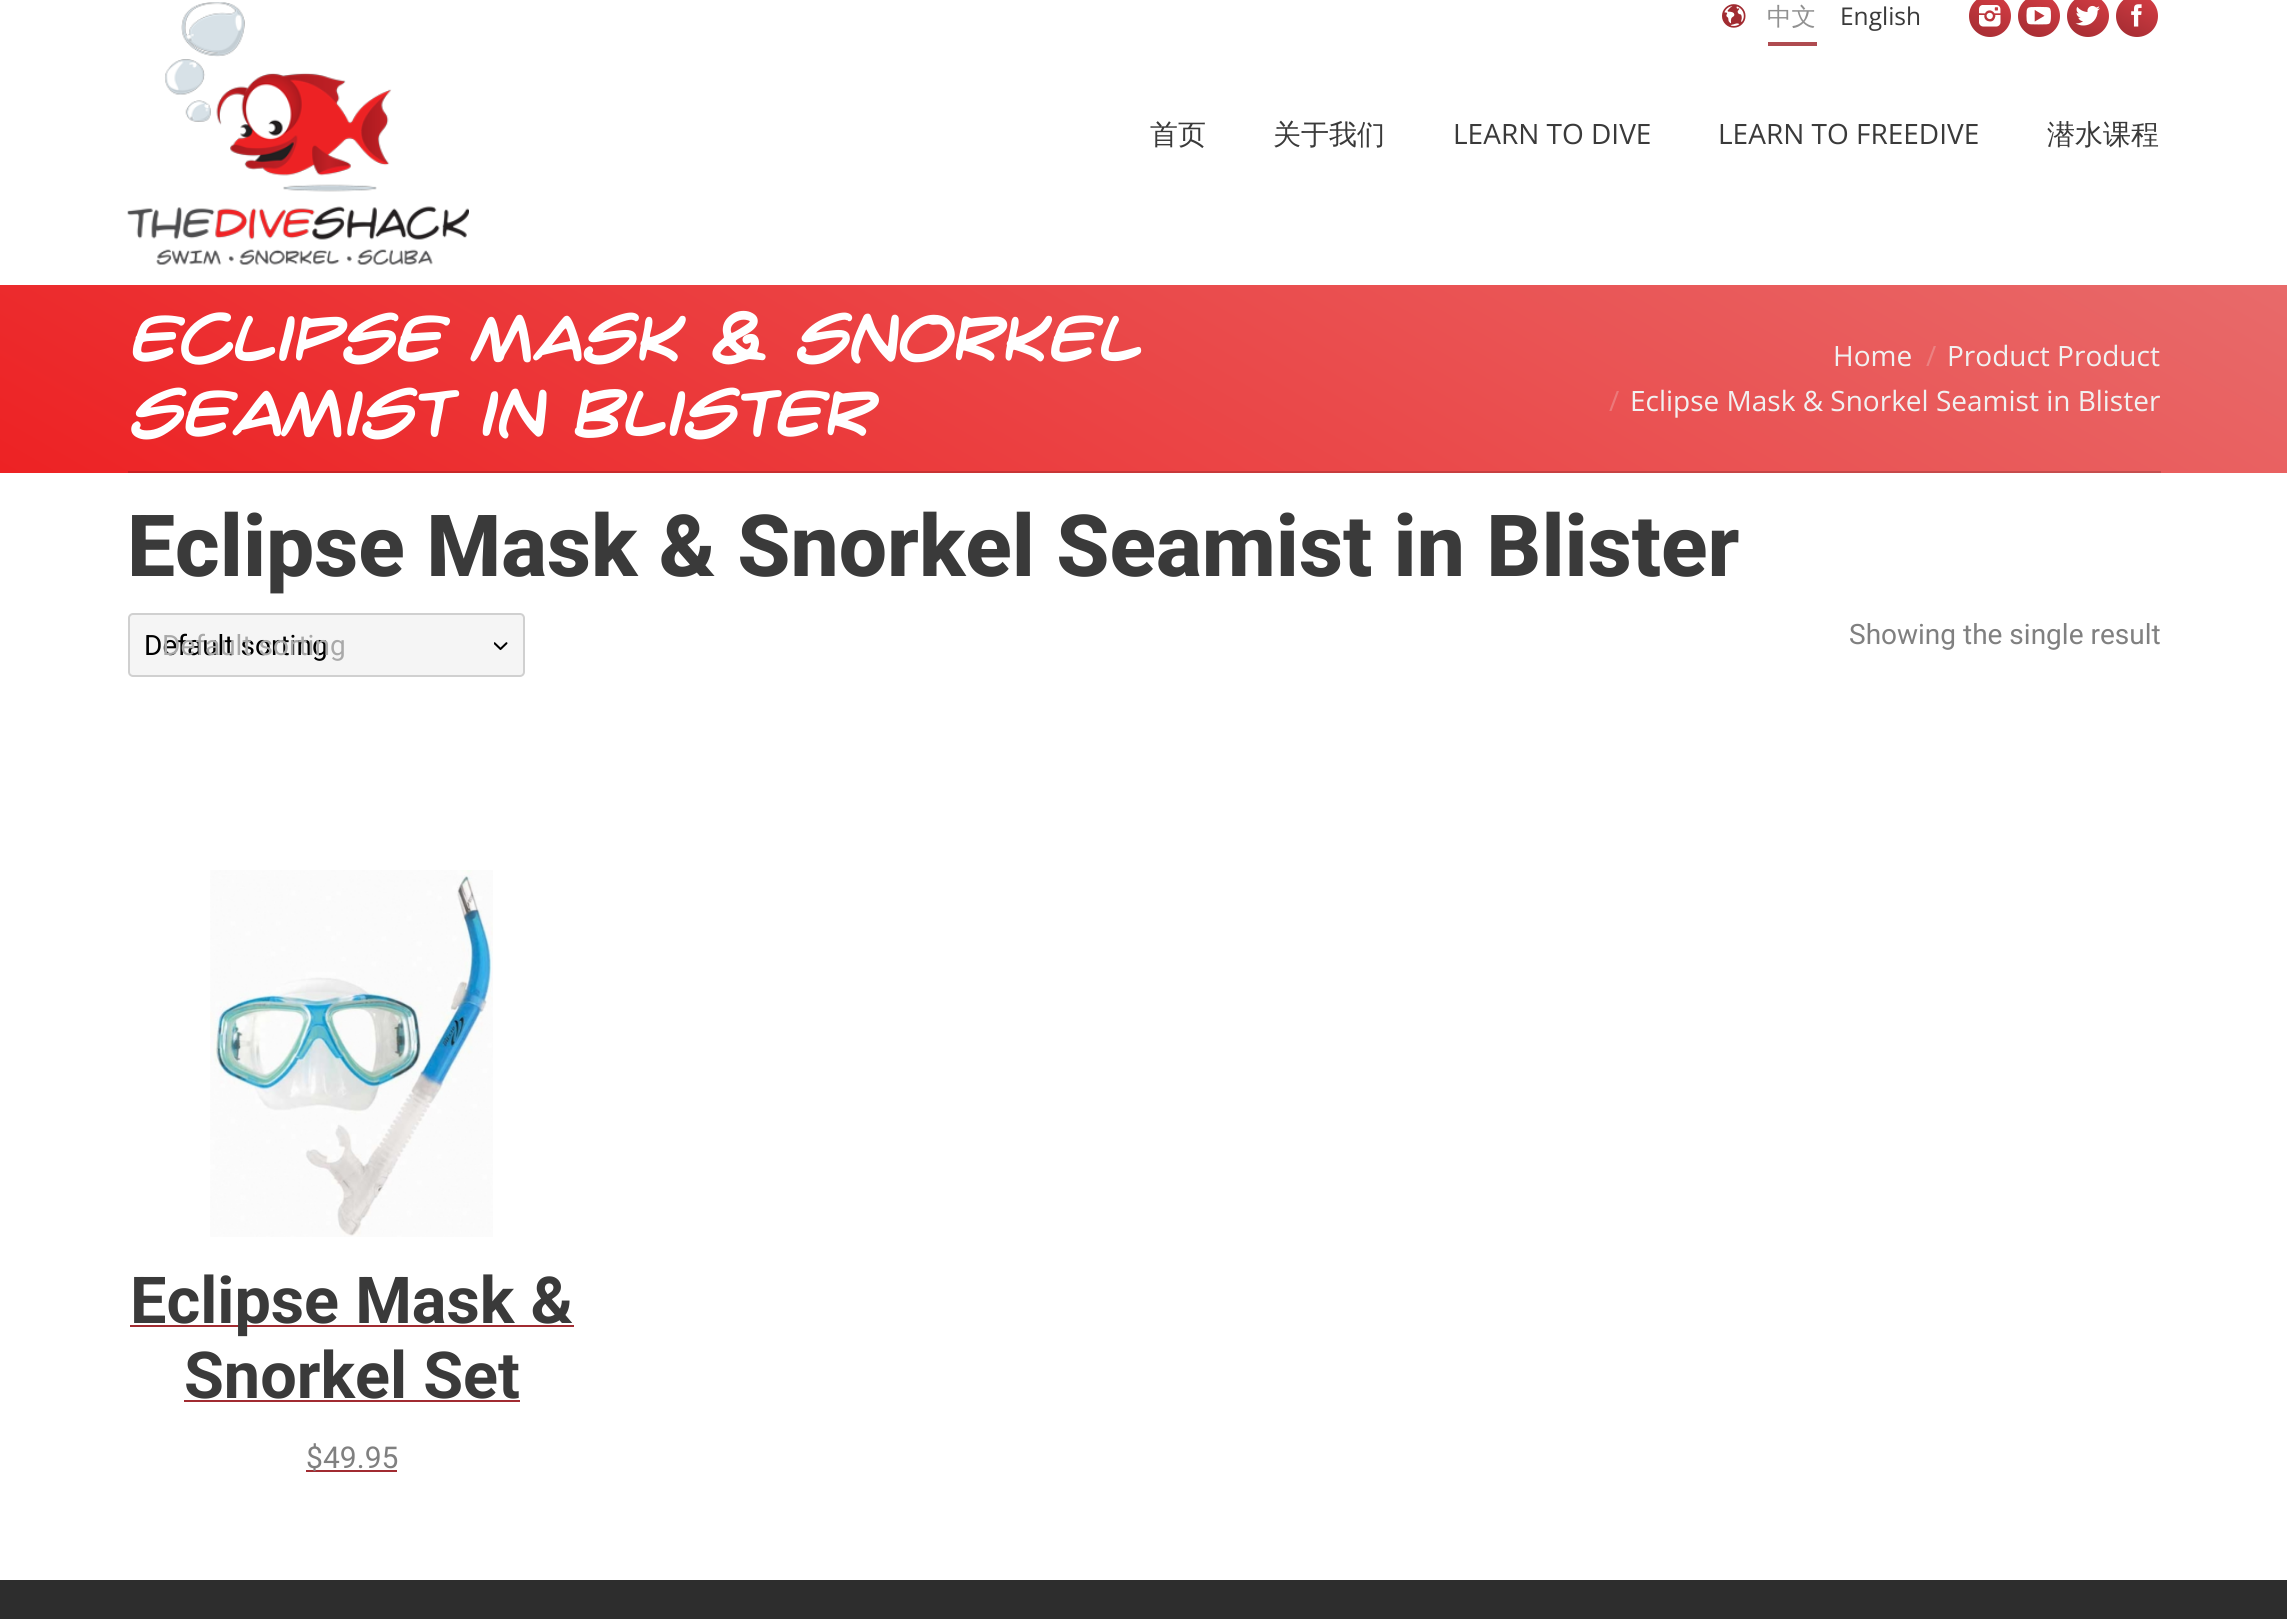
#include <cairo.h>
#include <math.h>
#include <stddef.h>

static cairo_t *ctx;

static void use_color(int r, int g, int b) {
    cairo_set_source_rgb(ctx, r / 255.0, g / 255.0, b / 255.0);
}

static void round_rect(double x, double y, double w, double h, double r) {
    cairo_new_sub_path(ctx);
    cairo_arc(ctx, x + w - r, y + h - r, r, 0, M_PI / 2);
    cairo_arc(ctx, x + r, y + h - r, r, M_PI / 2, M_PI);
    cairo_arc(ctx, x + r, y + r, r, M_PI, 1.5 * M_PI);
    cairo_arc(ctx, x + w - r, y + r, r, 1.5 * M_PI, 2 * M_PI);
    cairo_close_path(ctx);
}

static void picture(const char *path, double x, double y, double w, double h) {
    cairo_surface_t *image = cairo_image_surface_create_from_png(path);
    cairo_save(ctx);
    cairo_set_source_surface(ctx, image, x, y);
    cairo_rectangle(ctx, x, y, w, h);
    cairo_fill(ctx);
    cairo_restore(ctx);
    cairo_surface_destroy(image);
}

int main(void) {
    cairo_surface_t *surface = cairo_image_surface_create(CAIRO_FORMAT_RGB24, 2287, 1619);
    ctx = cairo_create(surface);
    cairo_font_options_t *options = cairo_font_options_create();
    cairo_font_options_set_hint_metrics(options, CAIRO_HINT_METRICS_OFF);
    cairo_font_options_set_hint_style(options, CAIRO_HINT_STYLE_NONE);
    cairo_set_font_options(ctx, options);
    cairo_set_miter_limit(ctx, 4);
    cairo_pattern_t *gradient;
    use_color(255, 255, 255);
    cairo_paint(ctx);
    picture("img1.png", 1722, 4, 24, 24);
    cairo_select_font_face(ctx, "WenQuanYi Zen Hei Medium", CAIRO_FONT_SLANT_NORMAL, CAIRO_FONT_WEIGHT_NORMAL);
    cairo_set_font_size(ctx, 24.5);
    use_color(145, 145, 145);
    cairo_move_to(ctx, 1767, 25);
    cairo_show_text(ctx, "中文");
    use_color(175, 75, 80);
    cairo_rectangle(ctx, 1768, 42, 49, 4);
    cairo_fill(ctx);
    cairo_select_font_face(ctx, "Open Sans", CAIRO_FONT_SLANT_NORMAL, CAIRO_FONT_WEIGHT_NORMAL);
    use_color(58, 58, 58);
    cairo_move_to(ctx, 1840, 25);
    cairo_show_text(ctx, "English");
    gradient = cairo_pattern_create_linear(1975, 41, 2004, -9);
    cairo_pattern_add_color_stop_rgba(gradient, 0, 0.631, 0.169, 0.192, 1);
    cairo_pattern_add_color_stop_rgba(gradient, 1, 0.843, 0.243, 0.271, 1);
    cairo_set_source(ctx, gradient);
    cairo_pattern_destroy(gradient);
    cairo_new_path(ctx);
    cairo_arc(ctx, 1990, 16, 21, 0, 2 * M_PI);
    cairo_fill(ctx);
    picture("img2.png", 1979, 5, 22, 22);
    gradient = cairo_pattern_create_linear(2024, 41, 2053, -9);
    cairo_pattern_add_color_stop_rgba(gradient, 0, 0.631, 0.169, 0.192, 1);
    cairo_pattern_add_color_stop_rgba(gradient, 1, 0.843, 0.243, 0.271, 1);
    cairo_set_source(ctx, gradient);
    cairo_pattern_destroy(gradient);
    cairo_arc(ctx, 2039, 16, 21, 0, 2 * M_PI);
    cairo_fill(ctx);
    picture("img3.png", 2026, 6, 25, 19);
    gradient = cairo_pattern_create_linear(2073, 41, 2102, -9);
    cairo_pattern_add_color_stop_rgba(gradient, 0, 0.631, 0.169, 0.192, 1);
    cairo_pattern_add_color_stop_rgba(gradient, 1, 0.843, 0.243, 0.271, 1);
    cairo_set_source(ctx, gradient);
    cairo_pattern_destroy(gradient);
    cairo_arc(ctx, 2088, 16, 21, 0, 2 * M_PI);
    cairo_fill(ctx);
    picture("img4.png", 2075, 5, 25, 21);
    gradient = cairo_pattern_create_linear(2122, 41, 2151, -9);
    cairo_pattern_add_color_stop_rgba(gradient, 0, 0.631, 0.169, 0.192, 1);
    cairo_pattern_add_color_stop_rgba(gradient, 1, 0.843, 0.243, 0.271, 1);
    cairo_set_source(ctx, gradient);
    cairo_pattern_destroy(gradient);
    cairo_arc(ctx, 2137, 16, 21, 0, 2 * M_PI);
    cairo_fill(ctx);
    picture("img5.png", 2131, 4, 11, 23);
    picture("img6.png", 127, 2, 342, 263);
    cairo_select_font_face(ctx, "WenQuanYi Zen Hei Medium", CAIRO_FONT_SLANT_NORMAL, CAIRO_FONT_WEIGHT_NORMAL);
    cairo_set_font_size(ctx, 28);
    use_color(58, 58, 58);
    cairo_move_to(ctx, 1150, 144);
    cairo_show_text(ctx, "首页");
    cairo_move_to(ctx, 1273, 144);
    cairo_show_text(ctx, "关于我们");
    cairo_select_font_face(ctx, "Open Sans", CAIRO_FONT_SLANT_NORMAL, CAIRO_FONT_WEIGHT_NORMAL);
    cairo_move_to(ctx, 1453, 144);
    cairo_show_text(ctx, "LEARN TO DIVE");
    cairo_move_to(ctx, 1718, 144);
    cairo_show_text(ctx, "LEARN TO FREEDIVE");
    cairo_select_font_face(ctx, "WenQuanYi Zen Hei Medium", CAIRO_FONT_SLANT_NORMAL, CAIRO_FONT_WEIGHT_NORMAL);
    cairo_move_to(ctx, 2047, 144);
    cairo_show_text(ctx, "潜水课程");
    gradient = cairo_pattern_create_linear(817, 944, 1470, -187);
    cairo_pattern_add_color_stop_rgba(gradient, 0, 0.929, 0.133, 0.141, 1);
    cairo_pattern_add_color_stop_rgba(gradient, 1, 0.91, 0.416, 0.416, 1);
    cairo_set_source(ctx, gradient);
    cairo_pattern_destroy(gradient);
    cairo_rectangle(ctx, 0, 285, 2287, 188);
    cairo_fill(ctx);
    gradient = cairo_pattern_create_linear(817, 944, 1470, -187);
    cairo_pattern_add_color_stop_rgba(gradient, 0, 0.788, 0.114, 0.122, 1);
    cairo_pattern_add_color_stop_rgba(gradient, 1, 0.773, 0.353, 0.353, 1);
    cairo_set_source(ctx, gradient);
    cairo_pattern_destroy(gradient);
    cairo_rectangle(ctx, 128, 471, 2033, 2);
    cairo_fill(ctx);
    cairo_select_font_face(ctx, "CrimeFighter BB", CAIRO_FONT_SLANT_NORMAL, CAIRO_FONT_WEIGHT_BOLD);
    cairo_set_font_size(ctx, 64.75);
    use_color(255, 255, 255);
    cairo_move_to(ctx, 127, 361);
    cairo_show_text(ctx, "Eclipse Mask & Snorkel");
    cairo_move_to(ctx, 127, 436);
    cairo_show_text(ctx, "Seamist in Blister");
    cairo_select_font_face(ctx, "Open Sans", CAIRO_FONT_SLANT_NORMAL, CAIRO_FONT_WEIGHT_NORMAL);
    cairo_set_font_size(ctx, 28);
    use_color(241, 241, 241);
    cairo_move_to(ctx, 1833, 366);
    cairo_show_text(ctx, "Home");
    use_color(235, 130, 130);
    cairo_move_to(ctx, 1926, 366);
    cairo_show_text(ctx, "/");
    use_color(241, 241, 241);
    cairo_move_to(ctx, 1947, 366);
    cairo_show_text(ctx, "Product Product");
    use_color(236, 121, 122);
    cairo_move_to(ctx, 1609, 411);
    cairo_show_text(ctx, "/");
    use_color(241, 241, 241);
    cairo_move_to(ctx, 1630, 411);
    cairo_show_text(ctx, "Eclipse Mask & Snorkel Seamist in Blister");
    cairo_select_font_face(ctx, "Roboto ExtraBold", CAIRO_FONT_SLANT_NORMAL, CAIRO_FONT_WEIGHT_NORMAL);
    cairo_set_font_size(ctx, 85.75);
    use_color(58, 58, 58);
    cairo_move_to(ctx, 127, 576);
    cairo_show_text(ctx, "Eclipse Mask & Snorkel Seamist in Blister");
    use_color(245, 245, 245);
    round_rect(128, 613, 397, 64, 5);
    cairo_fill(ctx);
    round_rect(129, 614, 395, 62, 4);
    cairo_set_source_rgba(ctx, 0, 0, 0, 0.15);
    cairo_stroke(ctx);
    picture("img7.png", 494, 642, 14, 9);
    cairo_select_font_face(ctx, "Roboto", CAIRO_FONT_SLANT_NORMAL, CAIRO_FONT_WEIGHT_NORMAL);
    cairo_set_font_size(ctx, 28);
    use_color(0, 0, 0);
    cairo_move_to(ctx, 144, 655);
    cairo_show_text(ctx, "Default sorting");
    use_color(169, 169, 169);
    cairo_move_to(ctx, 162, 655);
    cairo_show_text(ctx, "Default sorting");
    use_color(128, 128, 128);
    cairo_move_to(ctx, 1849, 644);
    cairo_show_text(ctx, "Showing the single result");
    picture("img8.png", 210, 870, 283, 367);
    use_color(161, 43, 49);
    cairo_rectangle(ctx, 130, 1325, 444, 2);
    cairo_fill(ctx);
    cairo_select_font_face(ctx, "Roboto", CAIRO_FONT_SLANT_NORMAL, CAIRO_FONT_WEIGHT_BOLD);
    cairo_set_font_size(ctx, 64.75);
    use_color(58, 58, 58);
    cairo_move_to(ctx, 130, 1323);
    cairo_show_text(ctx, "Eclipse Mask &");
    cairo_move_to(ctx, 184, 1398);
    cairo_show_text(ctx, "Snorkel Set");
    use_color(161, 43, 49);
    cairo_rectangle(ctx, 184, 1400, 336, 2);
    cairo_fill(ctx);
    cairo_rectangle(ctx, 306, 1470, 91, 2);
    cairo_fill(ctx);
    cairo_select_font_face(ctx, "Roboto", CAIRO_FONT_SLANT_NORMAL, CAIRO_FONT_WEIGHT_NORMAL);
    cairo_set_font_size(ctx, 30);
    use_color(128, 128, 128);
    cairo_move_to(ctx, 306, 1468);
    cairo_show_text(ctx, "$");
    cairo_move_to(ctx, 323, 1468);
    cairo_show_text(ctx, "49.95");
    use_color(45, 45, 45);
    cairo_rectangle(ctx, 0, 1580, 2287, 39);
    cairo_fill(ctx);
    cairo_surface_write_to_png(surface, "result.png");
    cairo_font_options_destroy(options);
    cairo_destroy(ctx);
    cairo_surface_destroy(surface);
    return 0;
}
